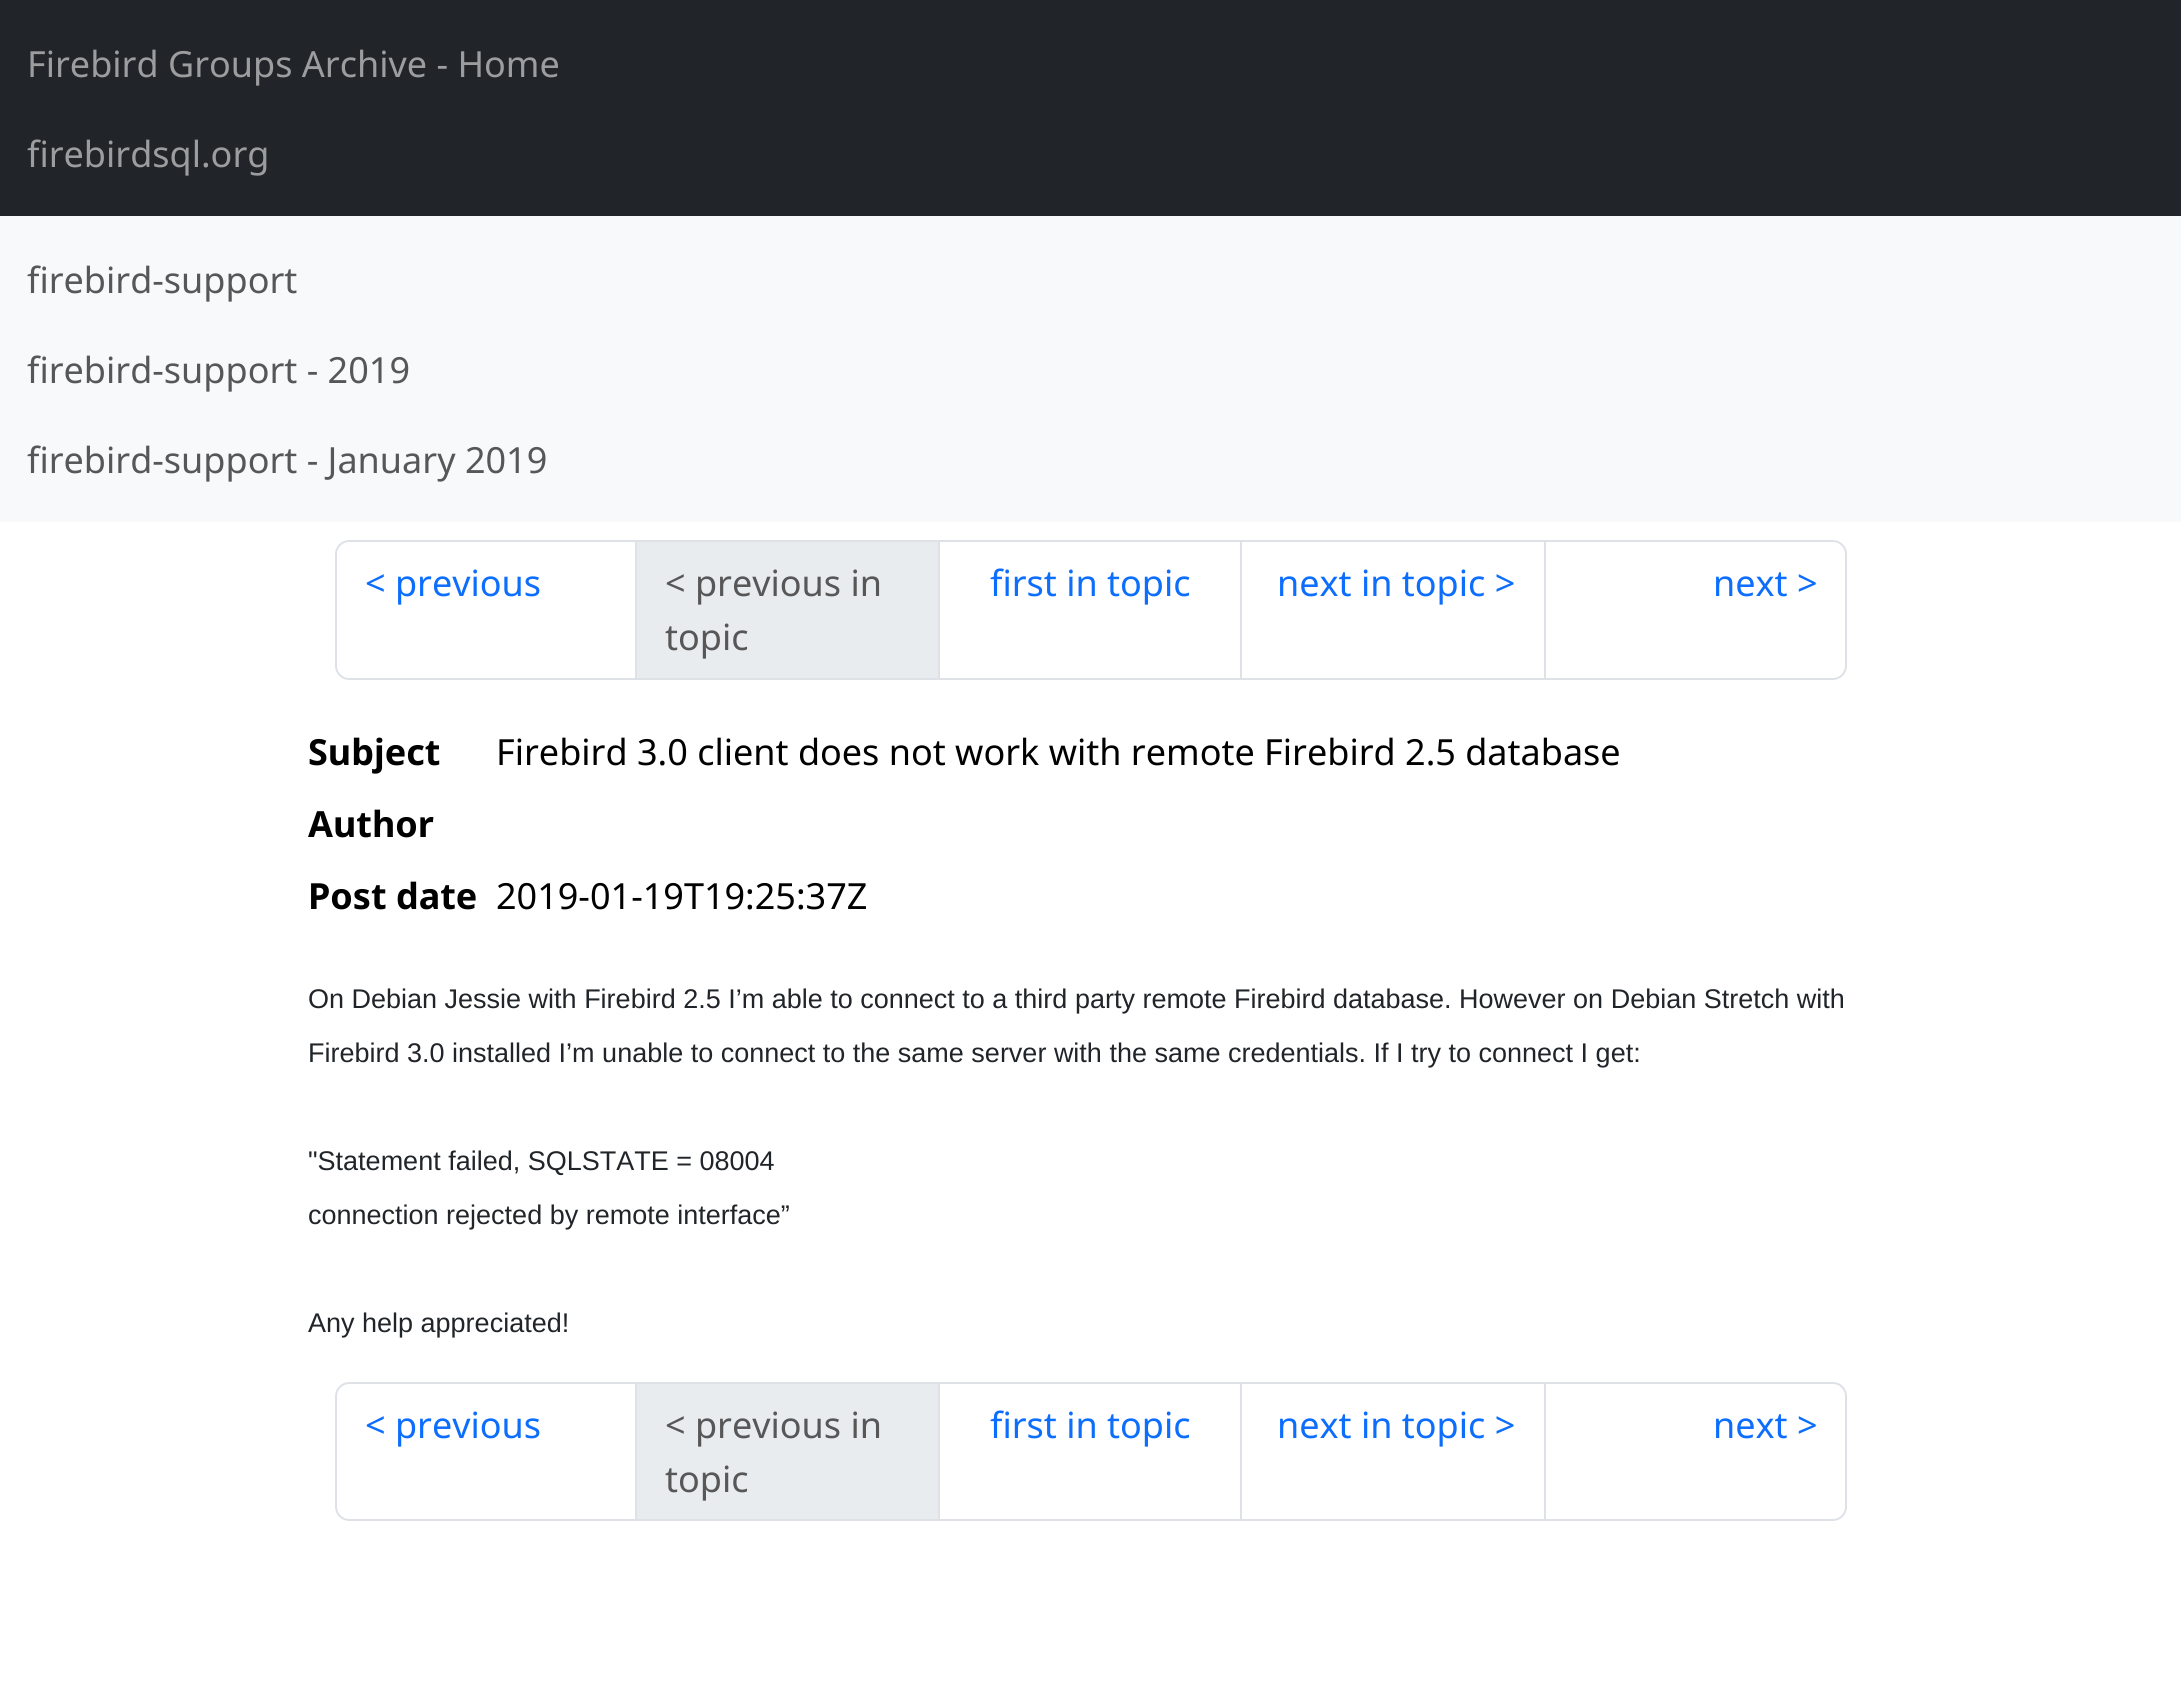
#include <cairo.h>
#include <math.h>
#include <stddef.h>

static cairo_t *ctx;

static void use_color(int r, int g, int b) {
    cairo_set_source_rgb(ctx, r / 255.0, g / 255.0, b / 255.0);
}

int main(void) {
    cairo_surface_t *surface = cairo_image_surface_create(CAIRO_FORMAT_RGB24, 2181, 1694);
    ctx = cairo_create(surface);
    cairo_font_options_t *options = cairo_font_options_create();
    cairo_font_options_set_hint_metrics(options, CAIRO_HINT_METRICS_OFF);
    cairo_font_options_set_hint_style(options, CAIRO_HINT_STYLE_NONE);
    cairo_set_font_options(ctx, options);
    cairo_set_miter_limit(ctx, 4);
    use_color(255, 255, 255);
    cairo_paint(ctx);
    use_color(33, 37, 41);
    cairo_rectangle(ctx, 0, 0, 2181, 216);
    cairo_fill(ctx);
    cairo_select_font_face(ctx, "Noto Sans", CAIRO_FONT_SLANT_NORMAL, CAIRO_FONT_WEIGHT_NORMAL);
    cairo_set_font_size(ctx, 36);
    use_color(155, 157, 159);
    cairo_move_to(ctx, 27, 77);
    cairo_show_text(ctx, "Firebird Groups Archive - Home");
    cairo_move_to(ctx, 27, 167);
    cairo_show_text(ctx, "firebirdsql.org");
    use_color(248, 249, 250);
    cairo_rectangle(ctx, 0, 216, 2181, 306);
    cairo_fill(ctx);
    use_color(87, 87, 88);
    cairo_move_to(ctx, 27, 293);
    cairo_show_text(ctx, "firebird-support");
    cairo_move_to(ctx, 27, 383);
    cairo_show_text(ctx, "firebird-support - 2019");
    cairo_move_to(ctx, 27, 473);
    cairo_show_text(ctx, "firebird-support - January 2019");
    cairo_new_path(ctx);
    cairo_move_to(ctx, 349, 541);
    cairo_line_to(ctx, 636, 541);
    cairo_line_to(ctx, 636, 679);
    cairo_line_to(ctx, 349, 679);
    cairo_curve_to(ctx, 342, 679, 336, 673, 336, 666);
    cairo_line_to(ctx, 336, 554);
    cairo_curve_to(ctx, 336, 547, 342, 541, 349, 541);
    cairo_close_path(ctx);
    use_color(222, 226, 230);
    cairo_stroke(ctx);
    use_color(13, 110, 253);
    cairo_move_to(ctx, 365, 596);
    cairo_show_text(ctx, "< previous");
    use_color(233, 236, 239);
    cairo_rectangle(ctx, 637, 542, 301, 136);
    cairo_fill(ctx);
    cairo_rectangle(ctx, 636, 541, 304, 138);
    use_color(222, 226, 230);
    cairo_stroke(ctx);
    use_color(87, 87, 88);
    cairo_move_to(ctx, 665, 596);
    cairo_show_text(ctx, "< previous in");
    cairo_move_to(ctx, 665, 650);
    cairo_show_text(ctx, "topic");
    use_color(255, 255, 255);
    cairo_rectangle(ctx, 940, 542, 1, 136);
    cairo_fill(ctx);
    cairo_rectangle(ctx, 939, 541, 302, 138);
    use_color(222, 226, 230);
    cairo_stroke(ctx);
    use_color(13, 110, 253);
    cairo_move_to(ctx, 990, 596);
    cairo_show_text(ctx, "first in topic");
    cairo_rectangle(ctx, 1241, 541, 304, 138);
    use_color(222, 226, 230);
    cairo_stroke(ctx);
    use_color(13, 110, 253);
    cairo_move_to(ctx, 1277, 596);
    cairo_show_text(ctx, "next in topic >");
    use_color(255, 255, 255);
    cairo_new_path(ctx);
    cairo_move_to(ctx, 1545, 541);
    cairo_line_to(ctx, 1833, 541);
    cairo_curve_to(ctx, 1840, 541, 1846, 547, 1846, 554);
    cairo_line_to(ctx, 1846, 666);
    cairo_curve_to(ctx, 1846, 673, 1840, 679, 1833, 679);
    cairo_line_to(ctx, 1545, 679);
    cairo_close_path(ctx);
    cairo_fill_preserve(ctx);
    use_color(222, 226, 230);
    cairo_stroke(ctx);
    use_color(13, 110, 253);
    cairo_move_to(ctx, 1713, 596);
    cairo_show_text(ctx, "next >");
    cairo_select_font_face(ctx, "Noto Sans", CAIRO_FONT_SLANT_NORMAL, CAIRO_FONT_WEIGHT_BOLD);
    use_color(0, 0, 0);
    cairo_move_to(ctx, 308, 765);
    cairo_show_text(ctx, "Subject");
    cairo_select_font_face(ctx, "Noto Sans", CAIRO_FONT_SLANT_NORMAL, CAIRO_FONT_WEIGHT_NORMAL);
    cairo_move_to(ctx, 496, 765);
    cairo_show_text(ctx, "Firebird 3.0 client does not work with remote Firebird 2.5 database");
    cairo_select_font_face(ctx, "Noto Sans", CAIRO_FONT_SLANT_NORMAL, CAIRO_FONT_WEIGHT_BOLD);
    cairo_move_to(ctx, 308, 837);
    cairo_show_text(ctx, "Author");
    cairo_move_to(ctx, 308, 909);
    cairo_show_text(ctx, "Post date");
    cairo_select_font_face(ctx, "Noto Sans", CAIRO_FONT_SLANT_NORMAL, CAIRO_FONT_WEIGHT_NORMAL);
    cairo_move_to(ctx, 496, 909);
    cairo_show_text(ctx, "2019-01-19T19:25:37Z");
    cairo_select_font_face(ctx, "Liberation Sans", CAIRO_FONT_SLANT_NORMAL, CAIRO_FONT_WEIGHT_NORMAL);
    cairo_set_font_size(ctx, 27);
    use_color(33, 37, 41);
    cairo_move_to(ctx, 308, 1008);
    cairo_show_text(ctx, "On Debian Jessie with Firebird 2.5 I’m able to connect to a third party remote Firebird database. However on Debian Stretch with");
    cairo_move_to(ctx, 308, 1062);
    cairo_show_text(ctx, "Firebird 3.0 installed I’m unable to connect to the same server with the same credentials. If I try to connect I get:");
    cairo_move_to(ctx, 308, 1170);
    cairo_show_text(ctx, "\"Statement failed, SQLSTATE = 08004");
    cairo_move_to(ctx, 308, 1224);
    cairo_show_text(ctx, "connection rejected by remote interface”");
    cairo_move_to(ctx, 308, 1332);
    cairo_show_text(ctx, "Any help appreciated!");
    cairo_new_path(ctx);
    cairo_move_to(ctx, 349, 1383);
    cairo_line_to(ctx, 636, 1383);
    cairo_line_to(ctx, 636, 1520);
    cairo_line_to(ctx, 349, 1520);
    cairo_curve_to(ctx, 342, 1520, 336, 1514, 336, 1507);
    cairo_line_to(ctx, 336, 1396);
    cairo_curve_to(ctx, 336, 1389, 342, 1383, 349, 1383);
    cairo_close_path(ctx);
    use_color(222, 226, 230);
    cairo_stroke(ctx);
    cairo_select_font_face(ctx, "Noto Sans", CAIRO_FONT_SLANT_NORMAL, CAIRO_FONT_WEIGHT_NORMAL);
    cairo_set_font_size(ctx, 36);
    use_color(13, 110, 253);
    cairo_move_to(ctx, 365, 1438);
    cairo_show_text(ctx, "< previous");
    use_color(233, 236, 239);
    cairo_rectangle(ctx, 637, 1384, 301, 135);
    cairo_fill(ctx);
    cairo_rectangle(ctx, 636, 1383, 304, 137);
    use_color(222, 226, 230);
    cairo_stroke(ctx);
    use_color(87, 87, 88);
    cairo_move_to(ctx, 665, 1438);
    cairo_show_text(ctx, "< previous in");
    cairo_move_to(ctx, 665, 1492);
    cairo_show_text(ctx, "topic");
    use_color(255, 255, 255);
    cairo_rectangle(ctx, 940, 1384, 1, 135);
    cairo_fill(ctx);
    cairo_rectangle(ctx, 939, 1383, 302, 137);
    use_color(222, 226, 230);
    cairo_stroke(ctx);
    use_color(13, 110, 253);
    cairo_move_to(ctx, 990, 1438);
    cairo_show_text(ctx, "first in topic");
    cairo_rectangle(ctx, 1241, 1383, 304, 137);
    use_color(222, 226, 230);
    cairo_stroke(ctx);
    use_color(13, 110, 253);
    cairo_move_to(ctx, 1277, 1438);
    cairo_show_text(ctx, "next in topic >");
    use_color(255, 255, 255);
    cairo_new_path(ctx);
    cairo_move_to(ctx, 1545, 1383);
    cairo_line_to(ctx, 1833, 1383);
    cairo_curve_to(ctx, 1840, 1383, 1846, 1389, 1846, 1396);
    cairo_line_to(ctx, 1846, 1507);
    cairo_curve_to(ctx, 1846, 1514, 1840, 1520, 1833, 1520);
    cairo_line_to(ctx, 1545, 1520);
    cairo_close_path(ctx);
    cairo_fill_preserve(ctx);
    use_color(222, 226, 230);
    cairo_stroke(ctx);
    use_color(13, 110, 253);
    cairo_move_to(ctx, 1713, 1438);
    cairo_show_text(ctx, "next >");
    cairo_surface_write_to_png(surface, "result.png");
    cairo_font_options_destroy(options);
    cairo_destroy(ctx);
    cairo_surface_destroy(surface);
    return 0;
}
